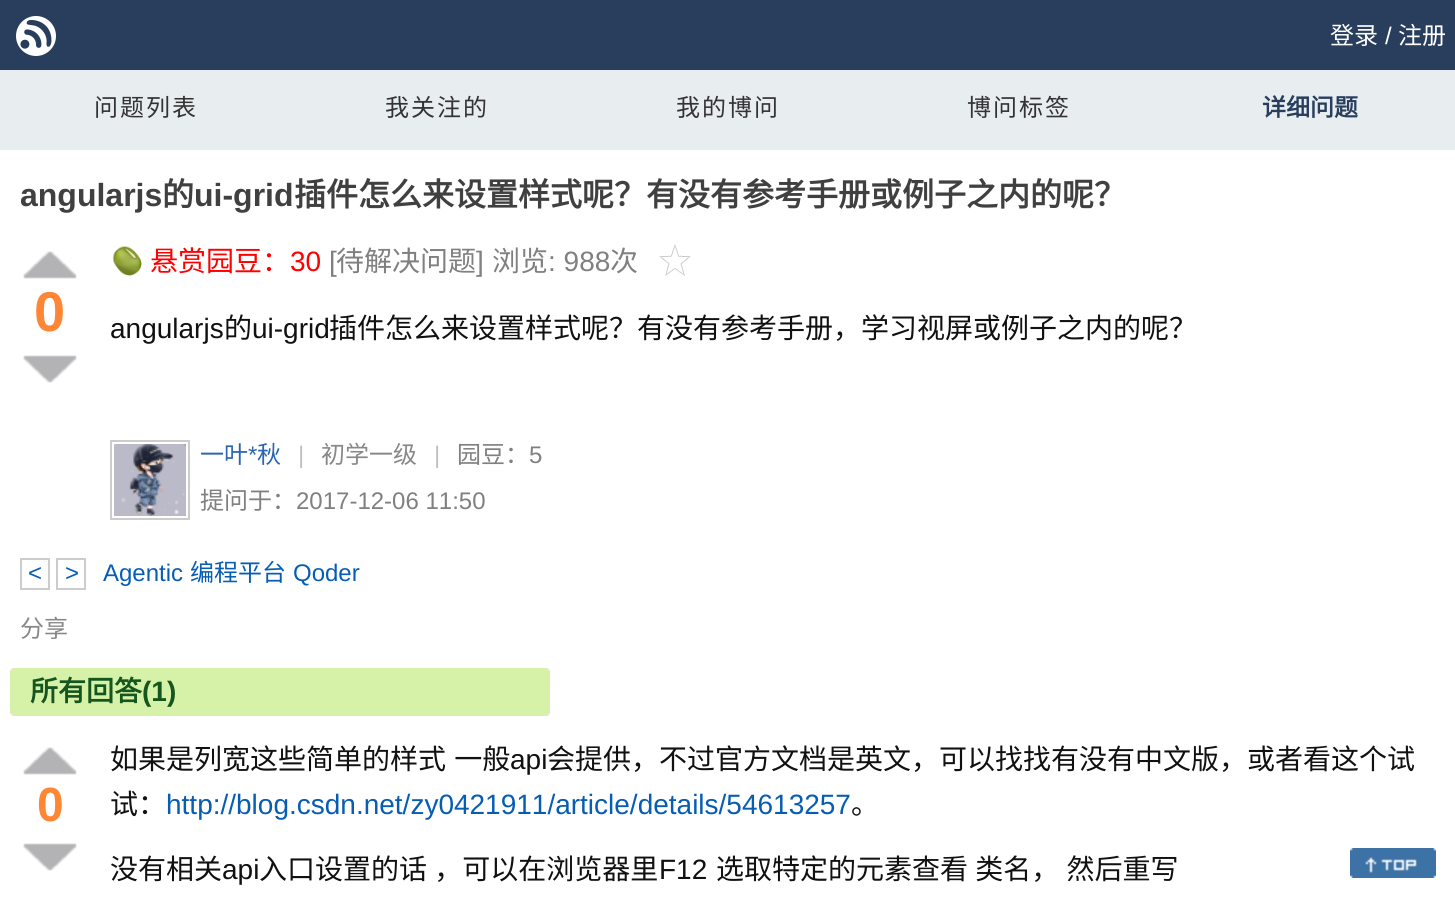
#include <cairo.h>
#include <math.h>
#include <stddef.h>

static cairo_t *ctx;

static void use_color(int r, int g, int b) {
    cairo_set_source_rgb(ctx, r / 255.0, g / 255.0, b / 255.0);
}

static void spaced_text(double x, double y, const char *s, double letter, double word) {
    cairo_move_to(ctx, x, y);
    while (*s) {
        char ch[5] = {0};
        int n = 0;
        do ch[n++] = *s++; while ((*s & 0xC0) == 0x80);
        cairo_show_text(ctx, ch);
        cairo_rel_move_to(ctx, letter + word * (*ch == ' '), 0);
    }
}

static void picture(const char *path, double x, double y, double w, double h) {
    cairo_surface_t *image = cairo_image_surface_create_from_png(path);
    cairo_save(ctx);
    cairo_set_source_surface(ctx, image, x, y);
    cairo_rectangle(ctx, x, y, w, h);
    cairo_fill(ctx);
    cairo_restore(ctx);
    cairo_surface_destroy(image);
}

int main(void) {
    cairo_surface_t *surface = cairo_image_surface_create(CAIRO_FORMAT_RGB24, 1455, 907);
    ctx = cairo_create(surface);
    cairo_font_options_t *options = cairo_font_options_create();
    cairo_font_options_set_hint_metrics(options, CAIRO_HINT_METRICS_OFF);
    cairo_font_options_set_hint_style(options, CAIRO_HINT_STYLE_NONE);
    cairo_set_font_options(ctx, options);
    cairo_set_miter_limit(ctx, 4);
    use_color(255, 255, 255);
    cairo_paint(ctx);
    use_color(40, 62, 92);
    cairo_rectangle(ctx, 0, 0, 1455, 70);
    cairo_fill(ctx);
    picture("img1.png", 16, 16, 40, 40);
    cairo_select_font_face(ctx, "Noto Sans CJK SC", CAIRO_FONT_SLANT_NORMAL, CAIRO_FONT_WEIGHT_NORMAL);
    cairo_set_font_size(ctx, 24);
    use_color(255, 255, 255);
    cairo_move_to(ctx, 1330, 44);
    cairo_show_text(ctx, "登录");
    cairo_select_font_face(ctx, "Liberation Sans", CAIRO_FONT_SLANT_NORMAL, CAIRO_FONT_WEIGHT_NORMAL);
    cairo_move_to(ctx, 1385, 44);
    cairo_show_text(ctx, "/");
    cairo_select_font_face(ctx, "Noto Sans CJK SC", CAIRO_FONT_SLANT_NORMAL, CAIRO_FONT_WEIGHT_NORMAL);
    cairo_move_to(ctx, 1398, 44);
    cairo_show_text(ctx, "注册");
    use_color(232, 237, 240);
    cairo_rectangle(ctx, 0, 70, 1455, 80);
    cairo_fill(ctx);
    use_color(51, 51, 51);
    spaced_text(94, 116, "问题列表", 2, 0);
    spaced_text(385, 116, "我关注的", 2, 0);
    spaced_text(676, 116, "我的博问", 2, 0);
    spaced_text(967, 116, "博问标签", 2, 0);
    cairo_select_font_face(ctx, "Noto Sans CJK SC", CAIRO_FONT_SLANT_NORMAL, CAIRO_FONT_WEIGHT_BOLD);
    use_color(40, 62, 92);
    cairo_move_to(ctx, 1262, 116);
    cairo_show_text(ctx, "详细问题");
    cairo_select_font_face(ctx, "Liberation Sans", CAIRO_FONT_SLANT_NORMAL, CAIRO_FONT_WEIGHT_BOLD);
    cairo_set_font_size(ctx, 32);
    use_color(64, 64, 64);
    cairo_move_to(ctx, 20, 206);
    cairo_show_text(ctx, "angularjs");
    cairo_select_font_face(ctx, "Noto Sans CJK SC", CAIRO_FONT_SLANT_NORMAL, CAIRO_FONT_WEIGHT_BOLD);
    cairo_move_to(ctx, 162, 206);
    cairo_show_text(ctx, "的");
    cairo_select_font_face(ctx, "Liberation Sans", CAIRO_FONT_SLANT_NORMAL, CAIRO_FONT_WEIGHT_BOLD);
    cairo_move_to(ctx, 194, 206);
    cairo_show_text(ctx, "ui-grid");
    cairo_select_font_face(ctx, "Noto Sans CJK SC", CAIRO_FONT_SLANT_NORMAL, CAIRO_FONT_WEIGHT_BOLD);
    cairo_move_to(ctx, 294, 206);
    cairo_show_text(ctx, "插件怎么来设置样式呢？有没有参考手册或例子之内的呢？");
    picture("img2.png", 23, 251, 54, 28);
    cairo_select_font_face(ctx, "Liberation Sans", CAIRO_FONT_SLANT_NORMAL, CAIRO_FONT_WEIGHT_BOLD);
    cairo_set_font_size(ctx, 56);
    use_color(255, 134, 53);
    cairo_move_to(ctx, 34, 331);
    cairo_show_text(ctx, "0");
    picture("img3.png", 23, 355, 54, 28);
    picture("img4.png", 112, 246, 30, 30);
    cairo_select_font_face(ctx, "Noto Sans CJK SC", CAIRO_FONT_SLANT_NORMAL, CAIRO_FONT_WEIGHT_NORMAL);
    cairo_set_font_size(ctx, 28);
    use_color(255, 0, 0);
    cairo_move_to(ctx, 150, 271);
    cairo_show_text(ctx, "悬赏园豆：");
    cairo_select_font_face(ctx, "Liberation Sans", CAIRO_FONT_SLANT_NORMAL, CAIRO_FONT_WEIGHT_NORMAL);
    cairo_move_to(ctx, 290, 271);
    cairo_show_text(ctx, "30");
    use_color(128, 128, 128);
    cairo_move_to(ctx, 329, 271);
    cairo_show_text(ctx, "[");
    cairo_select_font_face(ctx, "Noto Sans CJK SC", CAIRO_FONT_SLANT_NORMAL, CAIRO_FONT_WEIGHT_NORMAL);
    cairo_move_to(ctx, 336, 271);
    cairo_show_text(ctx, "待解决问题");
    cairo_select_font_face(ctx, "Liberation Sans", CAIRO_FONT_SLANT_NORMAL, CAIRO_FONT_WEIGHT_NORMAL);
    cairo_move_to(ctx, 476, 271);
    cairo_show_text(ctx, "]");
    cairo_select_font_face(ctx, "Noto Sans CJK SC", CAIRO_FONT_SLANT_NORMAL, CAIRO_FONT_WEIGHT_NORMAL);
    cairo_move_to(ctx, 492, 271);
    cairo_show_text(ctx, "浏览");
    cairo_select_font_face(ctx, "Liberation Sans", CAIRO_FONT_SLANT_NORMAL, CAIRO_FONT_WEIGHT_NORMAL);
    cairo_move_to(ctx, 548, 271);
    cairo_show_text(ctx, ": 988");
    cairo_select_font_face(ctx, "Noto Sans CJK SC", CAIRO_FONT_SLANT_NORMAL, CAIRO_FONT_WEIGHT_NORMAL);
    cairo_move_to(ctx, 610, 271);
    cairo_show_text(ctx, "次");
    picture("img5.png", 659, 244, 32, 32);
    cairo_select_font_face(ctx, "Liberation Sans", CAIRO_FONT_SLANT_NORMAL, CAIRO_FONT_WEIGHT_NORMAL);
    use_color(17, 17, 17);
    cairo_move_to(ctx, 110, 338);
    cairo_show_text(ctx, "angularjs");
    cairo_select_font_face(ctx, "Noto Sans CJK SC", CAIRO_FONT_SLANT_NORMAL, CAIRO_FONT_WEIGHT_NORMAL);
    cairo_move_to(ctx, 224, 338);
    cairo_show_text(ctx, "的");
    cairo_select_font_face(ctx, "Liberation Sans", CAIRO_FONT_SLANT_NORMAL, CAIRO_FONT_WEIGHT_NORMAL);
    cairo_move_to(ctx, 252, 338);
    cairo_show_text(ctx, "ui-grid");
    cairo_select_font_face(ctx, "Noto Sans CJK SC", CAIRO_FONT_SLANT_NORMAL, CAIRO_FONT_WEIGHT_NORMAL);
    cairo_move_to(ctx, 329, 338);
    cairo_show_text(ctx, "插件怎么来设置样式呢？有没有参考手册，学习视屏或例子之内的呢？");
    cairo_rectangle(ctx, 111, 441, 78, 78);
    use_color(204, 204, 204);
    cairo_stroke(ctx);
    picture("img6.png", 114, 444, 72, 72);
    cairo_set_font_size(ctx, 24);
    use_color(41, 101, 177);
    cairo_move_to(ctx, 200, 463);
    cairo_show_text(ctx, "一叶");
    cairo_select_font_face(ctx, "Liberation Sans", CAIRO_FONT_SLANT_NORMAL, CAIRO_FONT_WEIGHT_NORMAL);
    cairo_move_to(ctx, 248, 463);
    cairo_show_text(ctx, "*");
    cairo_select_font_face(ctx, "Noto Sans CJK SC", CAIRO_FONT_SLANT_NORMAL, CAIRO_FONT_WEIGHT_NORMAL);
    cairo_move_to(ctx, 257, 463);
    cairo_show_text(ctx, "秋");
    cairo_select_font_face(ctx, "Liberation Sans", CAIRO_FONT_SLANT_NORMAL, CAIRO_FONT_WEIGHT_NORMAL);
    use_color(193, 193, 193);
    cairo_move_to(ctx, 298, 463);
    cairo_show_text(ctx, "|");
    cairo_select_font_face(ctx, "Noto Sans CJK SC", CAIRO_FONT_SLANT_NORMAL, CAIRO_FONT_WEIGHT_NORMAL);
    use_color(136, 136, 136);
    cairo_move_to(ctx, 321, 463);
    cairo_show_text(ctx, "初学一级");
    cairo_select_font_face(ctx, "Liberation Sans", CAIRO_FONT_SLANT_NORMAL, CAIRO_FONT_WEIGHT_NORMAL);
    use_color(193, 193, 193);
    cairo_move_to(ctx, 434, 463);
    cairo_show_text(ctx, "|");
    cairo_select_font_face(ctx, "Noto Sans CJK SC", CAIRO_FONT_SLANT_NORMAL, CAIRO_FONT_WEIGHT_NORMAL);
    use_color(128, 128, 128);
    cairo_move_to(ctx, 457, 463);
    cairo_show_text(ctx, "园豆：");
    cairo_select_font_face(ctx, "Liberation Sans", CAIRO_FONT_SLANT_NORMAL, CAIRO_FONT_WEIGHT_NORMAL);
    cairo_move_to(ctx, 529, 463);
    cairo_show_text(ctx, "5");
    cairo_select_font_face(ctx, "Noto Sans CJK SC", CAIRO_FONT_SLANT_NORMAL, CAIRO_FONT_WEIGHT_NORMAL);
    cairo_move_to(ctx, 200, 509);
    cairo_show_text(ctx, "提问于：");
    cairo_select_font_face(ctx, "Liberation Sans", CAIRO_FONT_SLANT_NORMAL, CAIRO_FONT_WEIGHT_NORMAL);
    cairo_move_to(ctx, 296, 509);
    cairo_show_text(ctx, "2017-12-06 11:50");
    cairo_rectangle(ctx, 21, 559, 28, 30);
    use_color(204, 204, 204);
    cairo_stroke(ctx);
    use_color(7, 93, 179);
    cairo_move_to(ctx, 28, 581);
    cairo_show_text(ctx, "<");
    cairo_rectangle(ctx, 57, 559, 28, 30);
    use_color(204, 204, 204);
    cairo_stroke(ctx);
    use_color(7, 93, 179);
    cairo_move_to(ctx, 65, 581);
    cairo_show_text(ctx, ">");
    cairo_move_to(ctx, 103, 581);
    cairo_show_text(ctx, "Agentic");
    cairo_select_font_face(ctx, "Noto Sans CJK SC", CAIRO_FONT_SLANT_NORMAL, CAIRO_FONT_WEIGHT_NORMAL);
    cairo_move_to(ctx, 190, 581);
    cairo_show_text(ctx, "编程平台");
    cairo_select_font_face(ctx, "Liberation Sans", CAIRO_FONT_SLANT_NORMAL, CAIRO_FONT_WEIGHT_NORMAL);
    cairo_move_to(ctx, 293, 581);
    cairo_show_text(ctx, "Qoder");
    cairo_select_font_face(ctx, "Noto Sans CJK SC", CAIRO_FONT_SLANT_NORMAL, CAIRO_FONT_WEIGHT_NORMAL);
    use_color(136, 136, 136);
    cairo_move_to(ctx, 20, 637);
    cairo_show_text(ctx, "分享");
    picture("img7.png", 10, 668, 540, 48);
    cairo_select_font_face(ctx, "Noto Sans CJK SC", CAIRO_FONT_SLANT_NORMAL, CAIRO_FONT_WEIGHT_BOLD);
    cairo_set_font_size(ctx, 28);
    use_color(21, 85, 30);
    cairo_move_to(ctx, 30, 701);
    cairo_show_text(ctx, "所有回答");
    cairo_select_font_face(ctx, "Liberation Sans", CAIRO_FONT_SLANT_NORMAL, CAIRO_FONT_WEIGHT_BOLD);
    cairo_move_to(ctx, 142, 701);
    cairo_show_text(ctx, "(1)");
    picture("img2.png", 23, 747, 54, 28);
    cairo_set_font_size(ctx, 48);
    use_color(255, 134, 53);
    cairo_move_to(ctx, 37, 821);
    cairo_show_text(ctx, "0");
    picture("img3.png", 23, 843, 54, 28);
    cairo_select_font_face(ctx, "Noto Sans CJK SC", CAIRO_FONT_SLANT_NORMAL, CAIRO_FONT_WEIGHT_NORMAL);
    cairo_set_font_size(ctx, 28);
    use_color(17, 17, 17);
    spaced_text(110, 769, "如果是列宽这些简单的样式 一般", 0, 2);
    cairo_select_font_face(ctx, "Liberation Sans", CAIRO_FONT_SLANT_NORMAL, CAIRO_FONT_WEIGHT_NORMAL);
    cairo_move_to(ctx, 510, 769);
    cairo_show_text(ctx, "api");
    cairo_select_font_face(ctx, "Noto Sans CJK SC", CAIRO_FONT_SLANT_NORMAL, CAIRO_FONT_WEIGHT_NORMAL);
    cairo_move_to(ctx, 547, 769);
    cairo_show_text(ctx, "会提供，不过官方文档是英文，可以找找有没有中文版，或者看这个试");
    cairo_move_to(ctx, 110, 814);
    cairo_show_text(ctx, "试：");
    cairo_select_font_face(ctx, "Liberation Sans", CAIRO_FONT_SLANT_NORMAL, CAIRO_FONT_WEIGHT_NORMAL);
    use_color(7, 93, 179);
    cairo_move_to(ctx, 166, 814);
    cairo_show_text(ctx, "http://blog.csdn.net/zy0421911/article/details/54613257");
    cairo_select_font_face(ctx, "Noto Sans CJK SC", CAIRO_FONT_SLANT_NORMAL, CAIRO_FONT_WEIGHT_NORMAL);
    use_color(17, 17, 17);
    cairo_move_to(ctx, 851, 814);
    cairo_show_text(ctx, "。");
    cairo_move_to(ctx, 110, 879);
    cairo_show_text(ctx, "没有相关");
    cairo_select_font_face(ctx, "Liberation Sans", CAIRO_FONT_SLANT_NORMAL, CAIRO_FONT_WEIGHT_NORMAL);
    cairo_move_to(ctx, 222, 879);
    cairo_show_text(ctx, "api");
    cairo_select_font_face(ctx, "Noto Sans CJK SC", CAIRO_FONT_SLANT_NORMAL, CAIRO_FONT_WEIGHT_NORMAL);
    spaced_text(259, 879, "入口设置的话 ，可以在浏览器里", 0, 1);
    cairo_select_font_face(ctx, "Liberation Sans", CAIRO_FONT_SLANT_NORMAL, CAIRO_FONT_WEIGHT_NORMAL);
    cairo_move_to(ctx, 659, 879);
    cairo_show_text(ctx, "F12");
    cairo_select_font_face(ctx, "Noto Sans CJK SC", CAIRO_FONT_SLANT_NORMAL, CAIRO_FONT_WEIGHT_NORMAL);
    spaced_text(716, 879, "选取特定的元素查看 类名， 然后重写", 0, 1);
    picture("img8.png", 1350, 848, 86, 30);
    cairo_surface_write_to_png(surface, "result.png");
    cairo_font_options_destroy(options);
    cairo_destroy(ctx);
    cairo_surface_destroy(surface);
    return 0;
}
